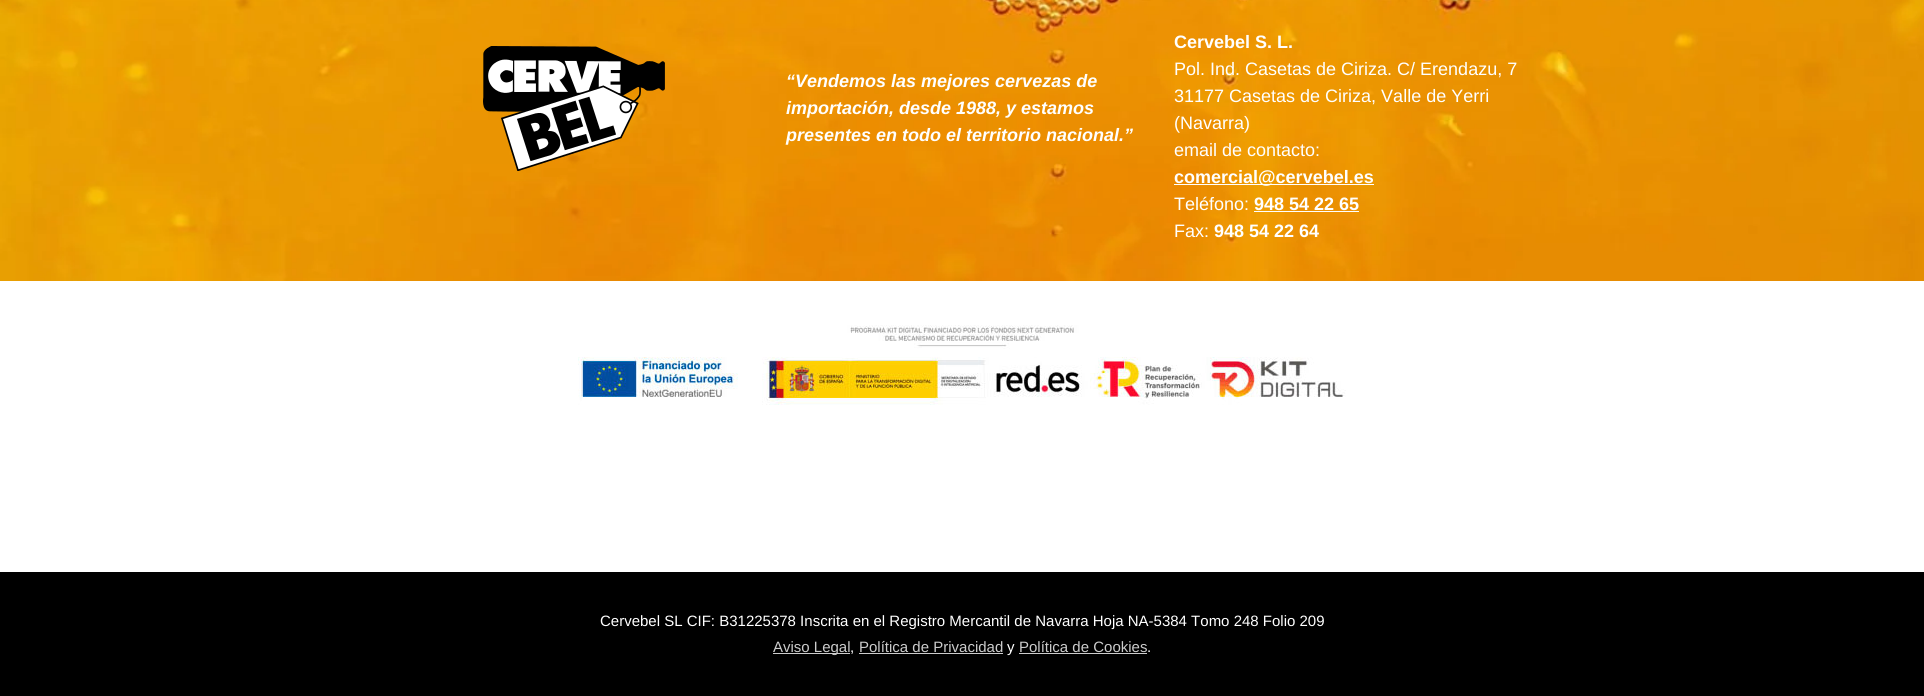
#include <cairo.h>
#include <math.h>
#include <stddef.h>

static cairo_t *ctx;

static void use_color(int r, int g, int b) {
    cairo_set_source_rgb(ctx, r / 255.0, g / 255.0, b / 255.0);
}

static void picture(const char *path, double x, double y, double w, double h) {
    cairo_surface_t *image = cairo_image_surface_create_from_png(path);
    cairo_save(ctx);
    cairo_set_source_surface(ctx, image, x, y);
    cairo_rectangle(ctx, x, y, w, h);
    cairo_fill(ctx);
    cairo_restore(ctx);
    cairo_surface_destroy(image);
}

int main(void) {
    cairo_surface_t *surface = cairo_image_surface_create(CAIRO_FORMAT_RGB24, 1924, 696);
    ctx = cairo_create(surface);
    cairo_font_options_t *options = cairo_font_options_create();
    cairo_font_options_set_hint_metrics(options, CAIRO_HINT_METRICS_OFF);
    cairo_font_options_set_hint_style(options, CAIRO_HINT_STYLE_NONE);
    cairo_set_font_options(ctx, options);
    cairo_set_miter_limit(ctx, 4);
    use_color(255, 255, 255);
    cairo_paint(ctx);
    picture("img1.png", 0, 0, 1924, 281);
    picture("img2.png", 483, 46, 182, 125);
    cairo_select_font_face(ctx, "Liberation Sans", CAIRO_FONT_SLANT_ITALIC, CAIRO_FONT_WEIGHT_BOLD);
    cairo_set_font_size(ctx, 18);
    use_color(255, 255, 255);
    cairo_move_to(ctx, 786, 87);
    cairo_show_text(ctx, "“Vendemos las mejores cervezas de");
    cairo_move_to(ctx, 786, 114);
    cairo_show_text(ctx, "importación, desde 1988, y estamos");
    cairo_move_to(ctx, 786, 141);
    cairo_show_text(ctx, "presentes en todo el territorio nacional.”");
    cairo_select_font_face(ctx, "Liberation Sans", CAIRO_FONT_SLANT_NORMAL, CAIRO_FONT_WEIGHT_BOLD);
    cairo_move_to(ctx, 1174, 48);
    cairo_show_text(ctx, "Cervebel S. L.");
    cairo_select_font_face(ctx, "Liberation Sans", CAIRO_FONT_SLANT_NORMAL, CAIRO_FONT_WEIGHT_NORMAL);
    cairo_move_to(ctx, 1174, 75);
    cairo_show_text(ctx, "Pol. Ind. Casetas de Ciriza. C/ Erendazu, 7");
    cairo_move_to(ctx, 1174, 102);
    cairo_show_text(ctx, "31177 Casetas de Ciriza, Valle de Yerri");
    cairo_move_to(ctx, 1174, 129);
    cairo_show_text(ctx, "(Navarra)");
    cairo_move_to(ctx, 1174, 156);
    cairo_show_text(ctx, "email de contacto:");
    cairo_rectangle(ctx, 1174, 184, 200, 1);
    cairo_fill(ctx);
    cairo_select_font_face(ctx, "Liberation Sans", CAIRO_FONT_SLANT_NORMAL, CAIRO_FONT_WEIGHT_BOLD);
    cairo_move_to(ctx, 1174, 183);
    cairo_show_text(ctx, "comercial@cervebel.es");
    cairo_select_font_face(ctx, "Liberation Sans", CAIRO_FONT_SLANT_NORMAL, CAIRO_FONT_WEIGHT_NORMAL);
    cairo_move_to(ctx, 1174, 210);
    cairo_show_text(ctx, "Teléfono:");
    cairo_select_font_face(ctx, "Liberation Sans", CAIRO_FONT_SLANT_NORMAL, CAIRO_FONT_WEIGHT_BOLD);
    cairo_move_to(ctx, 1254, 210);
    cairo_show_text(ctx, "948 54 22 65");
    cairo_rectangle(ctx, 1254, 211, 105, 1);
    cairo_fill(ctx);
    cairo_select_font_face(ctx, "Liberation Sans", CAIRO_FONT_SLANT_NORMAL, CAIRO_FONT_WEIGHT_NORMAL);
    cairo_move_to(ctx, 1174, 237);
    cairo_show_text(ctx, "Fax:");
    cairo_select_font_face(ctx, "Liberation Sans", CAIRO_FONT_SLANT_NORMAL, CAIRO_FONT_WEIGHT_BOLD);
    cairo_move_to(ctx, 1214, 237);
    cairo_show_text(ctx, "948 54 22 64");
    picture("img3.png", 578, 325, 768, 80);
    use_color(0, 0, 0);
    cairo_rectangle(ctx, 0, 572, 1924, 124);
    cairo_fill(ctx);
    cairo_select_font_face(ctx, "Liberation Sans", CAIRO_FONT_SLANT_NORMAL, CAIRO_FONT_WEIGHT_NORMAL);
    cairo_set_font_size(ctx, 15);
    use_color(255, 255, 255);
    cairo_move_to(ctx, 600, 626);
    cairo_show_text(ctx, "Cervebel SL CIF: B31225378 Inscrita en el Registro Mercantil de Navarra Hoja NA-5384 Tomo 248 Folio 209");
    use_color(204, 204, 204);
    cairo_rectangle(ctx, 773, 653, 77, 1);
    cairo_fill(ctx);
    cairo_move_to(ctx, 773, 652);
    cairo_show_text(ctx, "Aviso Legal");
    use_color(255, 255, 255);
    cairo_move_to(ctx, 850, 652);
    cairo_show_text(ctx, ",");
    use_color(204, 204, 204);
    cairo_move_to(ctx, 859, 652);
    cairo_show_text(ctx, "Política de Privacidad");
    cairo_rectangle(ctx, 859, 653, 144, 1);
    cairo_fill(ctx);
    use_color(255, 255, 255);
    cairo_move_to(ctx, 1007, 652);
    cairo_show_text(ctx, "y");
    use_color(204, 204, 204);
    cairo_move_to(ctx, 1019, 652);
    cairo_show_text(ctx, "Política de Cookies");
    cairo_rectangle(ctx, 1019, 653, 128, 1);
    cairo_fill(ctx);
    use_color(255, 255, 255);
    cairo_move_to(ctx, 1147, 652);
    cairo_show_text(ctx, ".");
    cairo_surface_write_to_png(surface, "result.png");
    cairo_font_options_destroy(options);
    cairo_destroy(ctx);
    cairo_surface_destroy(surface);
    return 0;
}
